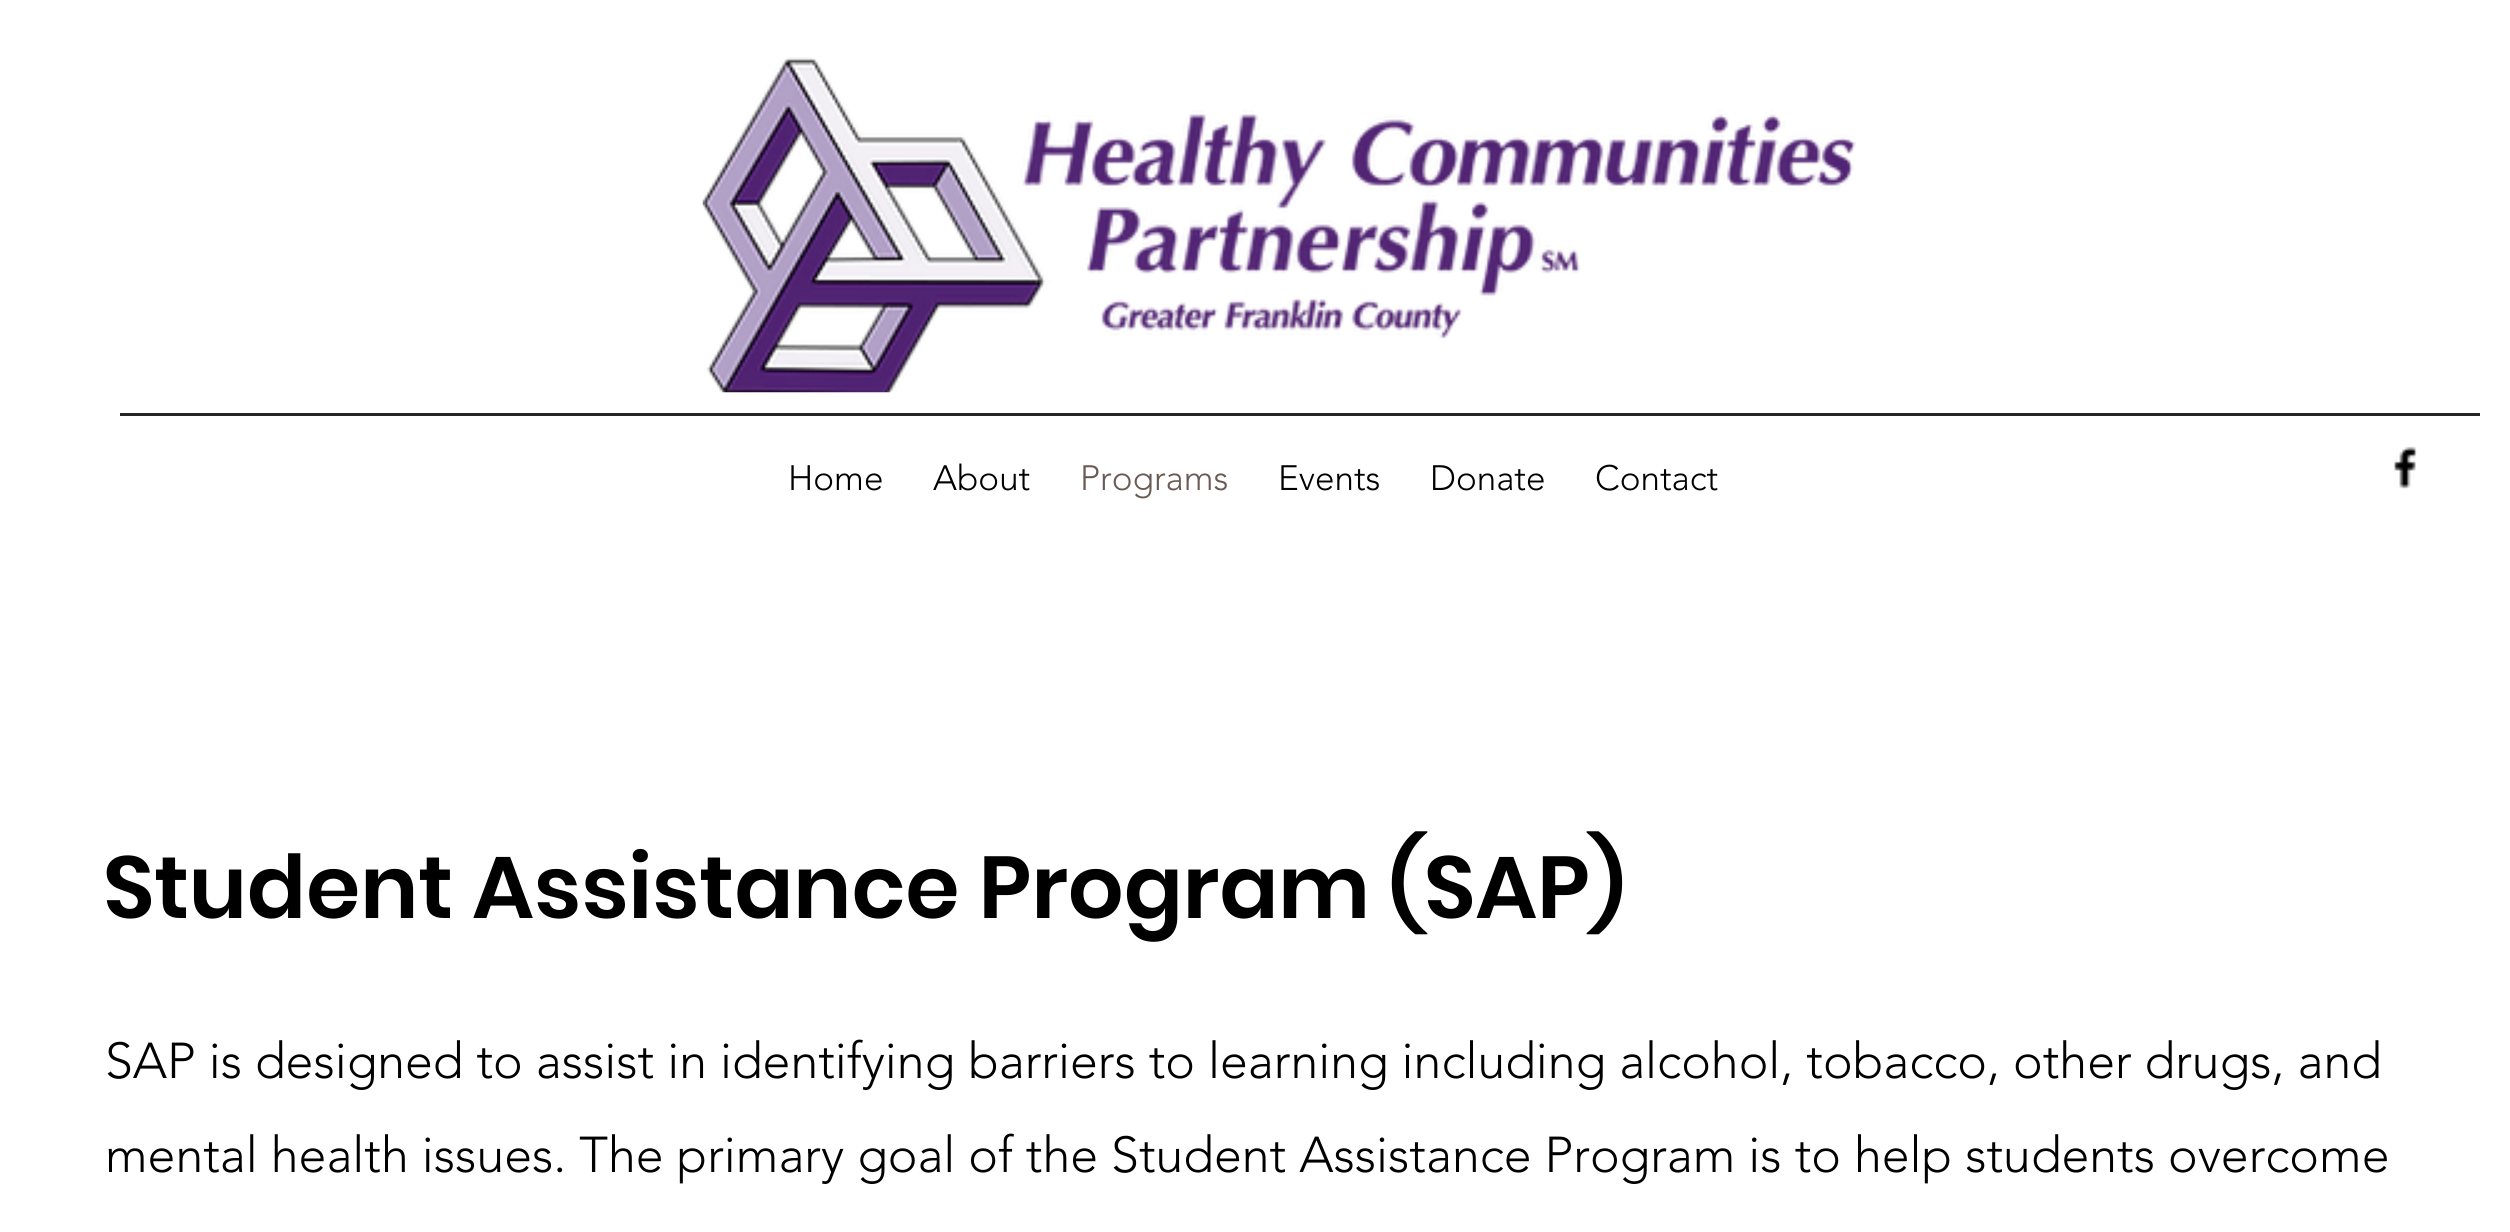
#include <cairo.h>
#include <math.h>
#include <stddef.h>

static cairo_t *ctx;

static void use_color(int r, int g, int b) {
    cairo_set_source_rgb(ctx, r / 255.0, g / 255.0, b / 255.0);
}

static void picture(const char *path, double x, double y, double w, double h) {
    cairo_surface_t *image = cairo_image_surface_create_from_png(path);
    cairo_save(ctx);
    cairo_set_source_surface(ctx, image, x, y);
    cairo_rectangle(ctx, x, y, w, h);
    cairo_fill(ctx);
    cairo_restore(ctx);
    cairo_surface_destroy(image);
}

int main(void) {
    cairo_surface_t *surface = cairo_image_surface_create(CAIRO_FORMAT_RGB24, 2510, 1232);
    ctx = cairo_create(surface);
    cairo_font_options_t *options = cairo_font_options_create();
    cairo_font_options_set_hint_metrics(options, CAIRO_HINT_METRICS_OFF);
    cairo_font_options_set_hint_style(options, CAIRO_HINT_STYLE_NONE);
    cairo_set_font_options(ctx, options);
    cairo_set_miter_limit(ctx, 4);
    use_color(255, 255, 255);
    cairo_paint(ctx);
    picture("img1.png", 702, 57, 1154, 336);
    use_color(38, 38, 38);
    cairo_rectangle(ctx, 120, 413, 2360, 3);
    cairo_fill(ctx);
    cairo_select_font_face(ctx, "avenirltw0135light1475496 Light", CAIRO_FONT_SLANT_NORMAL, CAIRO_FONT_WEIGHT_NORMAL);
    cairo_set_font_size(ctx, 35);
    use_color(0, 0, 0);
    cairo_move_to(ctx, 788, 490);
    cairo_show_text(ctx, "Home");
    cairo_move_to(ctx, 933, 490);
    cairo_show_text(ctx, "About");
    use_color(107, 90, 84);
    cairo_move_to(ctx, 1080, 490);
    cairo_show_text(ctx, "Programs");
    use_color(0, 0, 0);
    cairo_move_to(ctx, 1278, 490);
    cairo_show_text(ctx, "Events");
    cairo_move_to(ctx, 1430, 490);
    cairo_show_text(ctx, "Donate");
    cairo_move_to(ctx, 1595, 490);
    cairo_show_text(ctx, "Contact");
    picture("img2.png", 2394, 446, 23, 43);
    cairo_select_font_face(ctx, "Poppins SemiBold", CAIRO_FONT_SLANT_NORMAL, CAIRO_FONT_WEIGHT_NORMAL);
    cairo_set_font_size(ctx, 87.5);
    cairo_move_to(ctx, 103, 918);
    cairo_show_text(ctx, "Student Assistance Program (SAP)");
    cairo_select_font_face(ctx, "avenirltw0135light1475496 Light", CAIRO_FONT_SLANT_NORMAL, CAIRO_FONT_WEIGHT_NORMAL);
    cairo_set_font_size(ctx, 50);
    cairo_move_to(ctx, 105, 1078);
    cairo_show_text(ctx, "SAP is designed to assist in identifying barriers to learning including alcohol, tobacco, other drugs, and");
    cairo_move_to(ctx, 105, 1172);
    cairo_show_text(ctx, "mental health issues. The primary goal of the Student Assistance Program is to help students overcome");
    cairo_surface_write_to_png(surface, "result.png");
    cairo_font_options_destroy(options);
    cairo_destroy(ctx);
    cairo_surface_destroy(surface);
    return 0;
}
